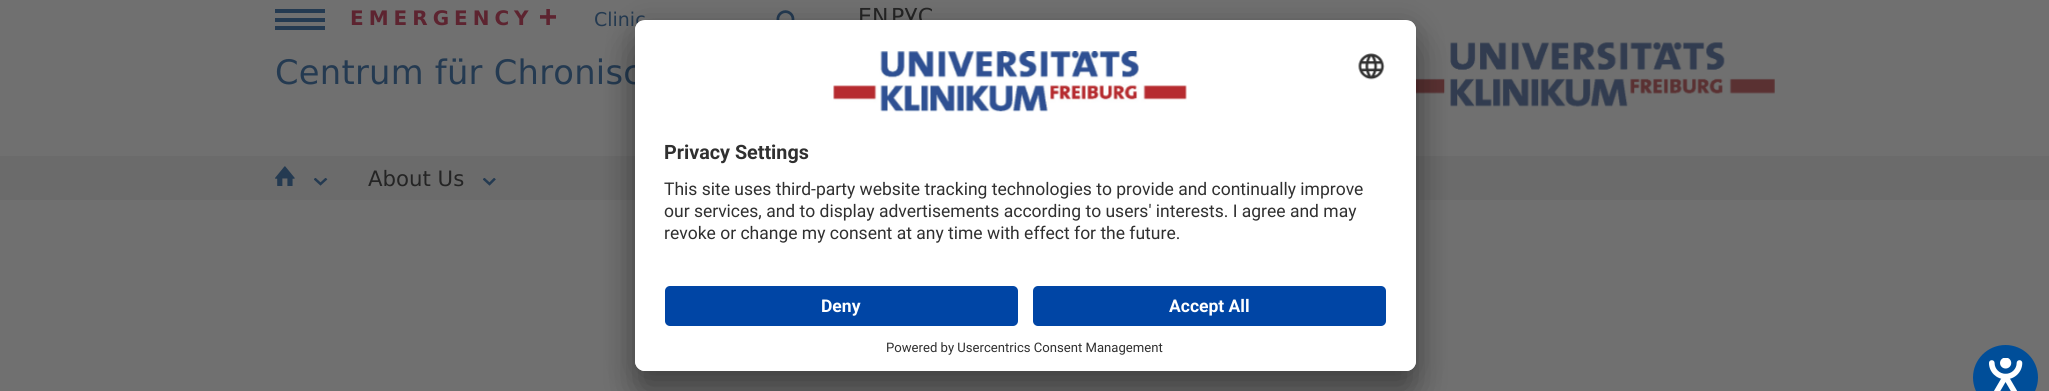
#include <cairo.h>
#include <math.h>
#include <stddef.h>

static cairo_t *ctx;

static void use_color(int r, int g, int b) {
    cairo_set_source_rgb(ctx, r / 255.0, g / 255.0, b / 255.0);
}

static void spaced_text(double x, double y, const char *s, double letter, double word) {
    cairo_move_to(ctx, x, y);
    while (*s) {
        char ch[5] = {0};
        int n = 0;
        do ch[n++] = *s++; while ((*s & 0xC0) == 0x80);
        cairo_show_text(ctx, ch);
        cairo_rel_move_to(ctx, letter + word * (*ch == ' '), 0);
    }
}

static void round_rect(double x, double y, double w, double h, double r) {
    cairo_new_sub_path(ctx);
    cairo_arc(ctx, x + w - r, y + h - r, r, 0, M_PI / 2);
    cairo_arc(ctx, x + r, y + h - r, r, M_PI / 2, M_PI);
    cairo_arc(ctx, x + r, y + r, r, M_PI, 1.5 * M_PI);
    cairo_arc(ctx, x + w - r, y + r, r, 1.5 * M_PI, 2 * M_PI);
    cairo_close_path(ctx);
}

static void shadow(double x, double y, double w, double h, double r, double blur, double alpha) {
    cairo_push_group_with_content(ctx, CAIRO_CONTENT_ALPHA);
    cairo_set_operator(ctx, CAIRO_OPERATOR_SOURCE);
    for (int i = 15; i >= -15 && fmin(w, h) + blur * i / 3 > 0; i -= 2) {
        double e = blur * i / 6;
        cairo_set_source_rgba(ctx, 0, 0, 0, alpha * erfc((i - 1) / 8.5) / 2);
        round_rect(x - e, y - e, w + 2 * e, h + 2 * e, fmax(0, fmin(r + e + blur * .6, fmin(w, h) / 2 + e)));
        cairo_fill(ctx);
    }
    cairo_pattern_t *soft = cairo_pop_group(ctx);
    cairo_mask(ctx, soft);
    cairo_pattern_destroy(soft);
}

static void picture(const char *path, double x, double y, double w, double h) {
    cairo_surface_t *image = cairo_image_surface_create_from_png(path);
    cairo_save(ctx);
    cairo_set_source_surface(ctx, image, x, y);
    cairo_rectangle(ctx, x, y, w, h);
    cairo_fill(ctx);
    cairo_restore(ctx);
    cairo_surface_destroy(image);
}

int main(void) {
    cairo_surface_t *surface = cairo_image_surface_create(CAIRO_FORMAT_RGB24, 2049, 391);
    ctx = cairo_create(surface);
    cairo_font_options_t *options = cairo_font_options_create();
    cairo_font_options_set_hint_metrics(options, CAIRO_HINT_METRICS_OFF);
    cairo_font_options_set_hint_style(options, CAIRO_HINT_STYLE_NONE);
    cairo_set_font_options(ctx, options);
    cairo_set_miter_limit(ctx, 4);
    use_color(112, 112, 112);
    cairo_paint(ctx);
    use_color(36, 58, 81);
    cairo_rectangle(ctx, 275, 9, 50, 4);
    cairo_fill(ctx);
    cairo_rectangle(ctx, 275, 18, 50, 4);
    cairo_fill(ctx);
    cairo_rectangle(ctx, 275, 26, 50, 4);
    cairo_fill(ctx);
    cairo_select_font_face(ctx, "DejaVu Sans", CAIRO_FONT_SLANT_NORMAL, CAIRO_FONT_WEIGHT_BOLD);
    cairo_set_font_size(ctx, 20);
    use_color(93, 36, 48);
    spaced_text(350, 25, "EMERGENCY", 5, 0);
    picture("img1.png", 540, 9, 16, 16);
    cairo_select_font_face(ctx, "DejaVu Sans", CAIRO_FONT_SLANT_NORMAL, CAIRO_FONT_WEIGHT_NORMAL);
    cairo_set_font_size(ctx, 19);
    use_color(36, 58, 81);
    cairo_move_to(ctx, 594, 26);
    cairo_show_text(ctx, "Clinic");
    picture("img2.png", 776, 10, 19, 10);
    cairo_set_font_size(ctx, 22);
    use_color(36, 36, 36);
    cairo_move_to(ctx, 858, 24);
    cairo_show_text(ctx, "EN");
    cairo_move_to(ctx, 891, 24);
    cairo_show_text(ctx, "РУС");
    cairo_set_font_size(ctx, 33.75);
    use_color(36, 58, 81);
    spaced_text(275, 84, "Centrum für Chronisc", 0.25, 0);
    picture("img3.png", 1416, 42, 359, 65);
    use_color(107, 107, 107);
    cairo_rectangle(ctx, 0, 156, 2049, 44);
    cairo_fill(ctx);
    picture("img4.png", 275, 166, 20, 20);
    cairo_save(ctx);
    cairo_rectangle(ctx, 314, 178, 14, 8);
    cairo_clip(ctx);
    cairo_new_path(ctx);
    cairo_move_to(ctx, 314.5, 178.5);
    cairo_line_to(ctx, 320.5, 184);
    cairo_line_to(ctx, 326.5, 178.5);
    use_color(36, 58, 81);
    cairo_set_line_width(ctx, 2.5);
    cairo_stroke(ctx);
    cairo_restore(ctx);
    cairo_set_font_size(ctx, 21.25);
    use_color(36, 36, 36);
    cairo_move_to(ctx, 368, 186);
    cairo_show_text(ctx, "About Us");
    cairo_save(ctx);
    cairo_rectangle(ctx, 483, 178, 13, 8);
    cairo_clip(ctx);
    cairo_new_path(ctx);
    cairo_move_to(ctx, 483.5, 178.5);
    cairo_line_to(ctx, 489.5, 184);
    cairo_line_to(ctx, 495, 178.5);
    use_color(36, 58, 81);
    cairo_set_line_width(ctx, 2.5);
    cairo_stroke(ctx);
    cairo_restore(ctx);
    use_color(0, 0, 0);
    shadow(635, 45, 781, 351, 10, 17.5, 0.3);
    shadow(635, 26, 781, 352, 10, 16, 0.22);
    use_color(255, 255, 255);
    round_rect(635, 20, 781, 351, 10);
    cairo_fill(ctx);
    cairo_save(ctx);
    round_rect(635, 20, 781, 351, 10);
    cairo_clip(ctx);
    cairo_new_path(ctx);
    cairo_move_to(ctx, 645, 20);
    cairo_line_to(ctx, 1406, 20);
    cairo_curve_to(ctx, 1411.5, 20, 1416, 24.5, 1416, 30);
    cairo_line_to(ctx, 1416, 276);
    cairo_line_to(ctx, 635, 276);
    cairo_line_to(ctx, 635, 30);
    cairo_curve_to(ctx, 635, 24.5, 639.5, 20, 645, 20);
    cairo_close_path(ctx);
    cairo_clip(ctx);
    cairo_rectangle(ctx, 635, 21, 781, 255);
    cairo_fill(ctx);
    cairo_restore(ctx);
    picture("img5.png", 833, 51, 354, 61);
    picture("img6.png", 1358, 53, 27, 27);
    cairo_select_font_face(ctx, "Roboto", CAIRO_FONT_SLANT_NORMAL, CAIRO_FONT_WEIGHT_BOLD);
    cairo_set_font_size(ctx, 19.75);
    use_color(48, 48, 48);
    cairo_move_to(ctx, 664, 159);
    cairo_show_text(ctx, "Privacy Settings");
    cairo_select_font_face(ctx, "Roboto", CAIRO_FONT_SLANT_NORMAL, CAIRO_FONT_WEIGHT_NORMAL);
    cairo_set_font_size(ctx, 17.5);
    cairo_move_to(ctx, 664, 195);
    cairo_show_text(ctx, "This site uses third-party website tracking technologies to provide and continually improve");
    cairo_move_to(ctx, 664, 217);
    cairo_show_text(ctx, "our services, and to display advertisements according to users' interests. I agree and may");
    cairo_move_to(ctx, 664, 239);
    cairo_show_text(ctx, "revoke or change my consent at any time with effect for the future.");
    use_color(255, 255, 255);
    cairo_new_path(ctx);
    cairo_move_to(ctx, 635, 276);
    cairo_line_to(ctx, 1416, 276);
    cairo_line_to(ctx, 1416, 361);
    cairo_curve_to(ctx, 1416, 366.5, 1411.5, 371, 1406, 371);
    cairo_line_to(ctx, 645, 371);
    cairo_curve_to(ctx, 639.5, 371, 635, 366.5, 635, 361);
    cairo_close_path(ctx);
    cairo_fill(ctx);
    use_color(0, 69, 165);
    round_rect(665, 286, 353, 40, 5);
    cairo_fill(ctx);
    cairo_select_font_face(ctx, "Roboto", CAIRO_FONT_SLANT_NORMAL, CAIRO_FONT_WEIGHT_BOLD);
    use_color(255, 255, 255);
    cairo_move_to(ctx, 821, 312);
    cairo_show_text(ctx, "Deny");
    use_color(0, 69, 165);
    round_rect(1033, 286, 353, 40, 5);
    cairo_fill(ctx);
    use_color(255, 255, 255);
    cairo_move_to(ctx, 1169, 312);
    cairo_show_text(ctx, "Accept All");
    cairo_select_font_face(ctx, "Roboto", CAIRO_FONT_SLANT_NORMAL, CAIRO_FONT_WEIGHT_NORMAL);
    cairo_set_font_size(ctx, 13.1);
    use_color(48, 48, 48);
    cairo_move_to(ctx, 886, 352);
    cairo_show_text(ctx, "Powered by Usercentrics Consent Management");
    use_color(0, 78, 153);
    cairo_new_path(ctx);
    cairo_arc(ctx, 2005.5, 377.5, 32.5, 0, 2 * M_PI);
    cairo_fill(ctx);
    picture("img7.png", 1989, 358, 34, 33);
    cairo_surface_write_to_png(surface, "result.png");
    cairo_font_options_destroy(options);
    cairo_destroy(ctx);
    cairo_surface_destroy(surface);
    return 0;
}
